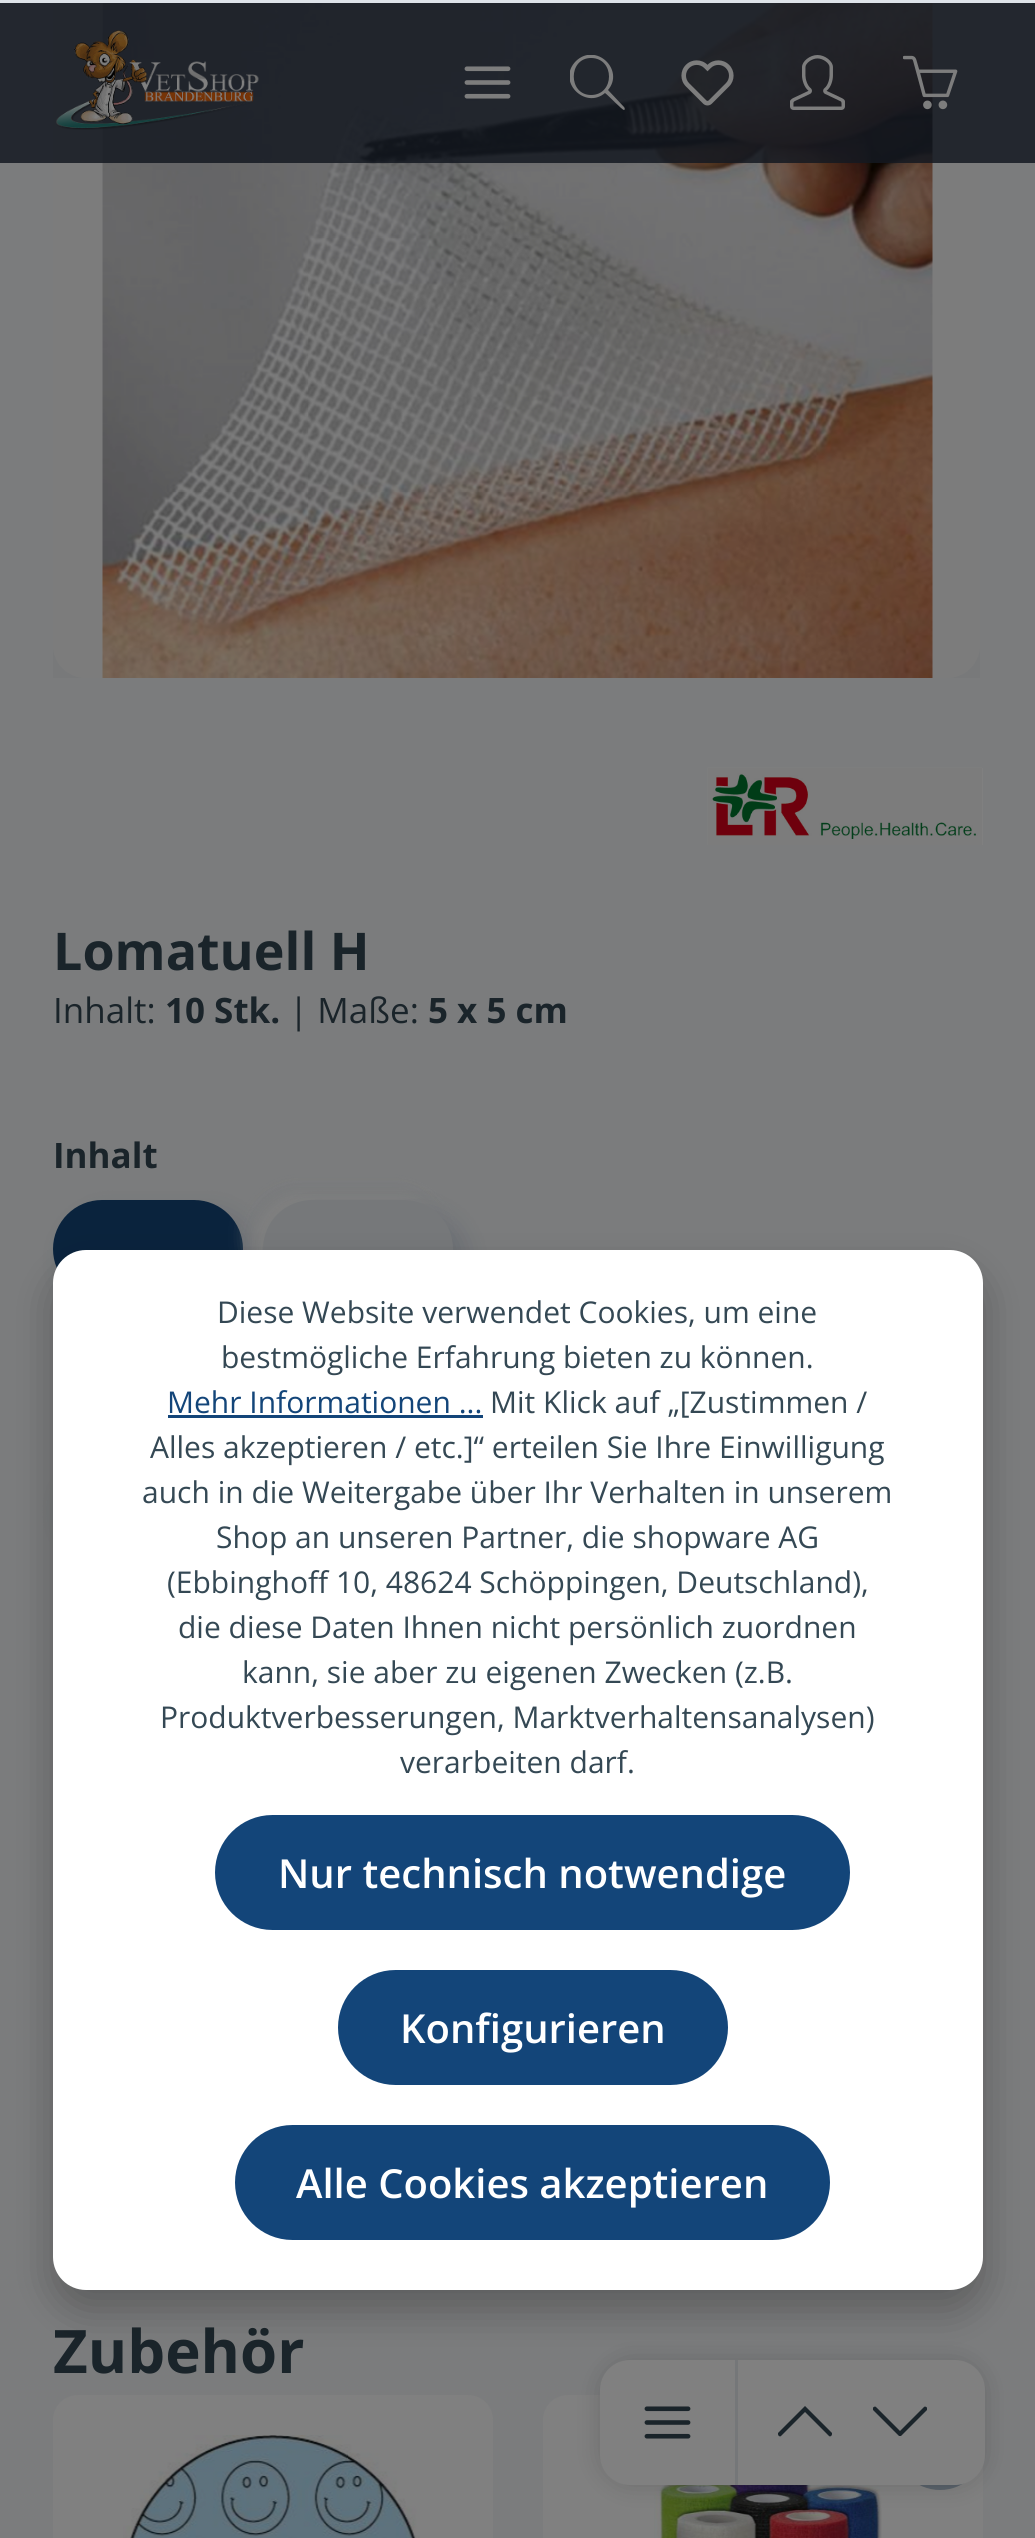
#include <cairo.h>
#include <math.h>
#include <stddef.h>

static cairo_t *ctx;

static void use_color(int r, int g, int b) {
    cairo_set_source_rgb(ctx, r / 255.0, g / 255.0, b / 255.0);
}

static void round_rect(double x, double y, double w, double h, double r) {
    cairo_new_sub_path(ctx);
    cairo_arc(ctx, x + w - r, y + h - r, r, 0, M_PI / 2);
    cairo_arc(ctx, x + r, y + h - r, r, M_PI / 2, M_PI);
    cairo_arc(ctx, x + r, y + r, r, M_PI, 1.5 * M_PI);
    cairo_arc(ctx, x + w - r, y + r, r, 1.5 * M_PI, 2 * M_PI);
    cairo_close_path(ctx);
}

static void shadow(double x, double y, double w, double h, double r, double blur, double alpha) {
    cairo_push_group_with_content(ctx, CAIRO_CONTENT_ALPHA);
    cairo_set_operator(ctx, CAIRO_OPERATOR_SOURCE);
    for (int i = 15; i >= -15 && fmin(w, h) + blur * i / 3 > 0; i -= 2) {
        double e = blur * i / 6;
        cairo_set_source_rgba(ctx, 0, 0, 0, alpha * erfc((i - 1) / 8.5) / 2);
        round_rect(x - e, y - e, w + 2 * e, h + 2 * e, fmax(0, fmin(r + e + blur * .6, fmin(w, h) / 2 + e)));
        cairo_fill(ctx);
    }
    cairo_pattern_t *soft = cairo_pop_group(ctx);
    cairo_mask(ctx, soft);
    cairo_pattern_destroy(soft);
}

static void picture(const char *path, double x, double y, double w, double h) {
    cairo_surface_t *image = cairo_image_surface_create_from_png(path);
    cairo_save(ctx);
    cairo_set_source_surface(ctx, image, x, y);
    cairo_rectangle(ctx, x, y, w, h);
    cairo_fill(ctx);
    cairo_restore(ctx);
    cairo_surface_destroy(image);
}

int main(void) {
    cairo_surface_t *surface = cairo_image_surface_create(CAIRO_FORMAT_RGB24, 1035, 2538);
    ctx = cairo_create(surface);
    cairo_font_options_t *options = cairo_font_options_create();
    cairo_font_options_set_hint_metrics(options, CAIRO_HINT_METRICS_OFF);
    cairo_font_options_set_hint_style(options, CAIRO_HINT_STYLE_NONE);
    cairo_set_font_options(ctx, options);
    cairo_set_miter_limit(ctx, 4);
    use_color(123, 124, 125);
    cairo_paint(ctx);
    use_color(128, 128, 128);
    round_rect(53, -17, 927, 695, 33);
    cairo_fill(ctx);
    picture("img6.png", 102, 3, 831, 675);
    cairo_set_source_rgba(ctx, 0, 0, 0, 0.03);
    cairo_rectangle(ctx, 53, 3, 927, 675);
    cairo_fill(ctx);
    cairo_set_source_rgba(ctx, 0.082, 0.098, 0.129, 0.85);
    cairo_rectangle(ctx, 0, 3, 1035, 160);
    cairo_fill(ctx);
    picture("img1.png", 56, 30, 203, 100);
    picture("img2.png", 464, 66, 47, 33);
    cairo_save(ctx);
    cairo_rectangle(ctx, 570, 55, 55, 55);
    cairo_clip(ctx);
    use_color(125, 125, 125);
    cairo_set_fill_rule(ctx, CAIRO_FILL_RULE_EVEN_ODD);
    cairo_new_path(ctx);
    cairo_move_to(ctx, 624, 107);
    cairo_line_to(ctx, 608, 90);
    cairo_curve_to(ctx, 625, 70, 596, 42, 576, 61);
    cairo_curve_to(ctx, 556, 81, 585, 110, 605, 93);
    cairo_curve_to(ctx, 608, 95, 622, 110, 624, 110);
    cairo_curve_to(ctx, 625, 110, 625, 108, 624, 107);
    cairo_close_path(ctx);
    cairo_move_to(ctx, 591, 95);
    cairo_curve_to(ctx, 568, 95, 568, 58, 591, 58);
    cairo_curve_to(ctx, 615, 58, 615, 95, 591, 95);
    cairo_close_path(ctx);
    cairo_fill(ctx);
    cairo_restore(ctx);
    picture("img3.png", 681, 60, 53, 46);
    picture("img4.png", 790, 55, 55, 55);
    picture("img5.png", 903, 55, 55, 55);
    use_color(128, 128, 128);
    cairo_rectangle(ctx, 982, 768, 1, 77);
    cairo_fill(ctx);
    picture("img7.png", 707, 767, 275, 78);
    cairo_select_font_face(ctx, "Open Sans", CAIRO_FONT_SLANT_NORMAL, CAIRO_FONT_WEIGHT_BOLD);
    cairo_set_font_size(ctx, 52);
    use_color(26, 36, 42);
    cairo_move_to(ctx, 53, 970);
    cairo_show_text(ctx, "Lomatuell H");
    cairo_select_font_face(ctx, "Open Sans", CAIRO_FONT_SLANT_NORMAL, CAIRO_FONT_WEIGHT_NORMAL);
    cairo_set_font_size(ctx, 35);
    cairo_move_to(ctx, 53, 1023);
    cairo_show_text(ctx, "Inhalt:");
    cairo_select_font_face(ctx, "Open Sans", CAIRO_FONT_SLANT_NORMAL, CAIRO_FONT_WEIGHT_BOLD);
    cairo_move_to(ctx, 165, 1023);
    cairo_show_text(ctx, "10 Stk.");
    cairo_select_font_face(ctx, "Open Sans", CAIRO_FONT_SLANT_NORMAL, CAIRO_FONT_WEIGHT_NORMAL);
    cairo_move_to(ctx, 289, 1023);
    cairo_show_text(ctx, "| Maße:");
    cairo_select_font_face(ctx, "Open Sans", CAIRO_FONT_SLANT_NORMAL, CAIRO_FONT_WEIGHT_BOLD);
    cairo_move_to(ctx, 428, 1023);
    cairo_show_text(ctx, "5 x 5 cm");
    cairo_move_to(ctx, 53, 1168);
    cairo_show_text(ctx, "Inhalt");
    use_color(105, 109, 115);
    shadow(65, 1213, 190, 97, 48.5, 12.5, 1);
    use_color(10, 35, 61);
    round_rect(53, 1200, 190, 98, 49);
    cairo_fill(ctx);
    use_color(118, 120, 122);
    shadow(250, 1188, 190, 97, 48.5, 9, 1);
    use_color(128, 128, 128);
    shadow(255, 1193, 190, 97, 48.5, 6, 1);
    use_color(105, 109, 115);
    shadow(275, 1213, 190, 97, 48.5, 12.5, 1);
    use_color(118, 120, 122);
    round_rect(263, 1200, 190, 98, 49);
    cairo_fill(ctx);
    use_color(105, 109, 115);
    shadow(65, 1463, 218, 97, 48.5, 12.5, 1);
    cairo_set_font_size(ctx, 60);
    use_color(26, 36, 42);
    cairo_move_to(ctx, 53, 2373);
    cairo_show_text(ctx, "Zubehör");
    use_color(128, 128, 128);
    round_rect(53, 2395, 440, 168, 25);
    cairo_fill(ctx);
    picture("img8.png", 123, 2435, 297, 103);
    round_rect(543, 2395, 440, 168, 25);
    cairo_fill(ctx);
    picture("img9.png", 654, 2485, 228, 53);
    cairo_set_source_rgba(ctx, 0.039, 0.137, 0.239, 0.33);
    round_rect(895, 2360, 90, 130, 45);
    cairo_fill(ctx);
    use_color(0, 0, 0);
    shadow(600, 2360, 385, 125, 30, 12.5, 0.15);
    use_color(128, 128, 128);
    round_rect(600, 2360, 385, 125, 30);
    cairo_fill(ctx);
    use_color(117, 119, 121);
    cairo_rectangle(ctx, 735, 2360, 3, 125);
    cairo_fill(ctx);
    picture("img10.png", 644, 2406, 47, 33);
    use_color(26, 36, 42);
    cairo_set_fill_rule(ctx, CAIRO_FILL_RULE_EVEN_ODD);
    cairo_new_path(ctx);
    cairo_move_to(ctx, 805, 2412);
    cairo_line_to(ctx, 829, 2436);
    cairo_curve_to(ctx, 830, 2437, 832, 2436, 832, 2434);
    cairo_line_to(ctx, 832, 2433);
    cairo_line_to(ctx, 806, 2407);
    cairo_line_to(ctx, 805, 2406);
    cairo_line_to(ctx, 804, 2407);
    cairo_line_to(ctx, 778, 2433);
    cairo_line_to(ctx, 778, 2434);
    cairo_curve_to(ctx, 778, 2436, 780, 2437, 781, 2436);
    cairo_close_path(ctx);
    cairo_fill(ctx);
    cairo_new_path(ctx);
    cairo_move_to(ctx, 900, 2431);
    cairo_line_to(ctx, 924, 2407);
    cairo_curve_to(ctx, 925, 2406, 927, 2407, 927, 2408);
    cairo_line_to(ctx, 927, 2410);
    cairo_line_to(ctx, 901, 2436);
    cairo_line_to(ctx, 900, 2436);
    cairo_line_to(ctx, 899, 2436);
    cairo_line_to(ctx, 873, 2410);
    cairo_line_to(ctx, 873, 2408);
    cairo_curve_to(ctx, 873, 2407, 875, 2406, 876, 2407);
    cairo_close_path(ctx);
    cairo_fill(ctx);
    use_color(222, 227, 233);
    cairo_rectangle(ctx, 0, 0, 1035, 3);
    cairo_fill(ctx);
    use_color(0, 0, 0);
    shadow(53, 1270, 930, 1040, 33, 20, 0.25);
    use_color(255, 255, 255);
    round_rect(53, 1250, 930, 1040, 33);
    cairo_fill(ctx);
    cairo_select_font_face(ctx, "Open Sans", CAIRO_FONT_SLANT_NORMAL, CAIRO_FONT_WEIGHT_NORMAL);
    cairo_set_font_size(ctx, 30);
    use_color(52, 72, 84);
    cairo_move_to(ctx, 217, 1323);
    cairo_show_text(ctx, "Diese Website verwendet Cookies, um eine");
    cairo_move_to(ctx, 221, 1368);
    cairo_show_text(ctx, "bestmögliche Erfahrung bieten zu können.");
    use_color(19, 69, 121);
    cairo_move_to(ctx, 167, 1413);
    cairo_show_text(ctx, "Mehr Informationen ...");
    cairo_rectangle(ctx, 168, 1415, 315, 3);
    cairo_fill(ctx);
    use_color(52, 72, 84);
    cairo_move_to(ctx, 490, 1413);
    cairo_show_text(ctx, "Mit Klick auf „[Zustimmen /");
    cairo_move_to(ctx, 150, 1458);
    cairo_show_text(ctx, "Alles akzeptieren / etc.]“ erteilen Sie Ihre Einwilligung");
    cairo_move_to(ctx, 142, 1503);
    cairo_show_text(ctx, "auch in die Weitergabe über Ihr Verhalten in unserem");
    cairo_move_to(ctx, 216, 1548);
    cairo_show_text(ctx, "Shop an unseren Partner, die shopware AG");
    cairo_move_to(ctx, 167, 1593);
    cairo_show_text(ctx, "(Ebbinghoff 10, 48624 Schöppingen, Deutschland),");
    cairo_move_to(ctx, 178, 1638);
    cairo_show_text(ctx, "die diese Daten Ihnen nicht persönlich zuordnen");
    cairo_move_to(ctx, 242, 1683);
    cairo_show_text(ctx, "kann, sie aber zu eigenen Zwecken (z.B.");
    cairo_move_to(ctx, 160, 1728);
    cairo_show_text(ctx, "Produktverbesserungen, Marktverhaltensanalysen)");
    cairo_move_to(ctx, 400, 1773);
    cairo_show_text(ctx, "verarbeiten darf.");
    use_color(19, 69, 121);
    round_rect(216.5, 1816.5, 632, 112, 56);
    cairo_fill_preserve(ctx);
    cairo_set_line_width(ctx, 3);
    cairo_stroke(ctx);
    cairo_select_font_face(ctx, "Open Sans SemiBold", CAIRO_FONT_SLANT_NORMAL, CAIRO_FONT_WEIGHT_NORMAL);
    cairo_set_font_size(ctx, 40);
    use_color(255, 255, 255);
    cairo_move_to(ctx, 278, 1888);
    cairo_show_text(ctx, "Nur technisch notwendige");
    use_color(19, 69, 121);
    round_rect(339.5, 1971.5, 387, 112, 56);
    cairo_fill_preserve(ctx);
    cairo_stroke(ctx);
    use_color(255, 255, 255);
    cairo_move_to(ctx, 400, 2043);
    cairo_show_text(ctx, "Konfigurieren");
    use_color(19, 69, 121);
    round_rect(236.5, 2126.5, 592, 112, 56);
    cairo_fill_preserve(ctx);
    cairo_stroke(ctx);
    use_color(255, 255, 255);
    cairo_move_to(ctx, 296, 2198);
    cairo_show_text(ctx, "Alle Cookies akzeptieren");
    cairo_surface_write_to_png(surface, "result.png");
    cairo_font_options_destroy(options);
    cairo_destroy(ctx);
    cairo_surface_destroy(surface);
    return 0;
}
